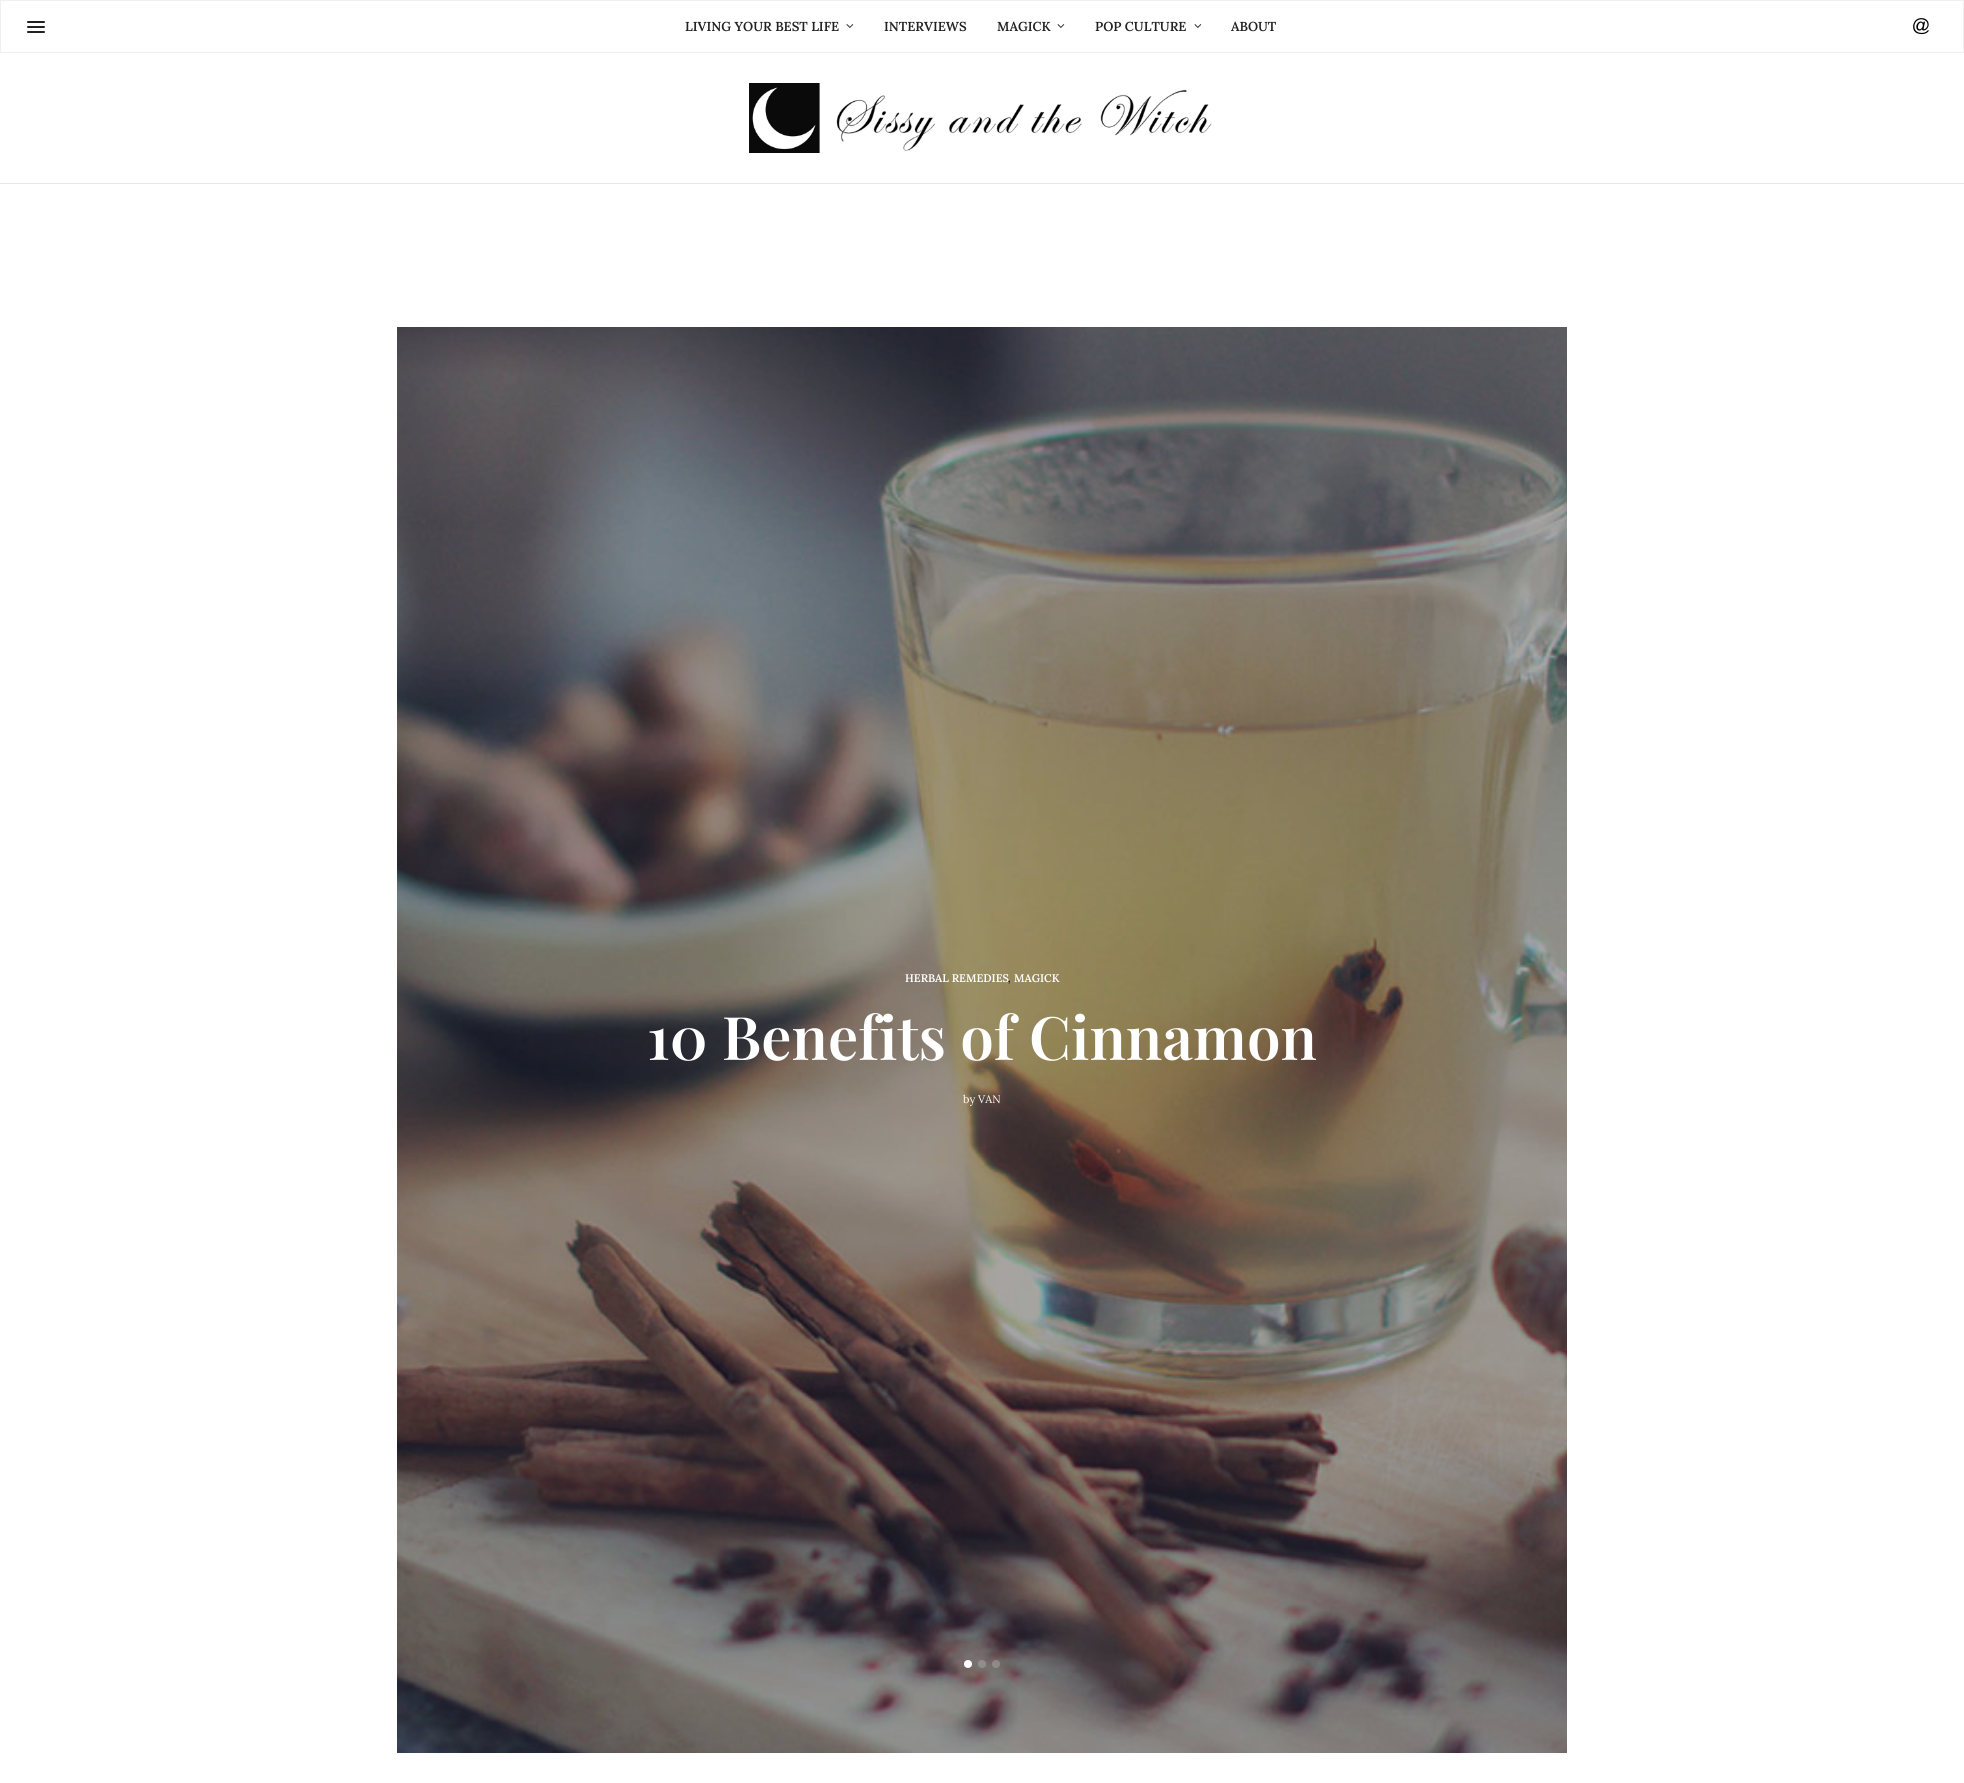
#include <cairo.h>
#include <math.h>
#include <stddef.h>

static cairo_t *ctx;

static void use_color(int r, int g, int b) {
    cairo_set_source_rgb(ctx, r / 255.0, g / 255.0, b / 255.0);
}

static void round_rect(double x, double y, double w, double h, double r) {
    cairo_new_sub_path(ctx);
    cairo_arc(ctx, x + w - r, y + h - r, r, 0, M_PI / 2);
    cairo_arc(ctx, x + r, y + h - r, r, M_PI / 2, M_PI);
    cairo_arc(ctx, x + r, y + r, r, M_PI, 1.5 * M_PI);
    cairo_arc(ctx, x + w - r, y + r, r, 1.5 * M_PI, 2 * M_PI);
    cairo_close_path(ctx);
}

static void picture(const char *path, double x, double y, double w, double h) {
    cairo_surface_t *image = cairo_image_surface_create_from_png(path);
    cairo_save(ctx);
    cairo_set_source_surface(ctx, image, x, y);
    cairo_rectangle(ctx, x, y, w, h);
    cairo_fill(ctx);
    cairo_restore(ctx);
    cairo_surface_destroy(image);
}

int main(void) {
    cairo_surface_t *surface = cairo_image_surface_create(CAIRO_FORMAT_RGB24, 1964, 1783);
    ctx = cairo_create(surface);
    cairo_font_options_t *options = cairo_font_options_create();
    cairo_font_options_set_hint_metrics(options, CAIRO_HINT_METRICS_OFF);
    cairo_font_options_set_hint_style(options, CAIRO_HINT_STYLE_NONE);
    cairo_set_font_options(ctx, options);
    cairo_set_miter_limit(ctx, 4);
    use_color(255, 255, 255);
    cairo_paint(ctx);
    cairo_rectangle(ctx, 0.5, 0.5, 1963, 52);
    use_color(240, 240, 240);
    cairo_set_line_width(ctx, 1);
    cairo_stroke(ctx);
    use_color(34, 34, 34);
    round_rect(27, 21, 18, 2, 1);
    cairo_fill(ctx);
    round_rect(27, 26, 18, 2, 1);
    cairo_fill(ctx);
    round_rect(27, 31, 18, 2, 1);
    cairo_fill(ctx);
    cairo_select_font_face(ctx, "Lora SemiBold", CAIRO_FONT_SLANT_NORMAL, CAIRO_FONT_WEIGHT_NORMAL);
    cairo_set_font_size(ctx, 13);
    cairo_move_to(ctx, 685, 31);
    cairo_show_text(ctx, "LIVING YOUR BEST LIFE");
    picture("img1.png", 846, 24, 8, 4);
    cairo_move_to(ctx, 884, 31);
    cairo_show_text(ctx, "INTERVIEWS");
    cairo_move_to(ctx, 997, 31);
    cairo_show_text(ctx, "MAGICK");
    picture("img1.png", 1057, 24, 8, 4);
    cairo_move_to(ctx, 1095, 31);
    cairo_show_text(ctx, "POP CULTURE");
    picture("img1.png", 1194, 24, 8, 4);
    cairo_move_to(ctx, 1231, 31);
    cairo_show_text(ctx, "ABOUT");
    picture("img2.png", 1913, 18, 16, 17);
    use_color(230, 230, 230);
    cairo_rectangle(ctx, 0, 183, 1964, 1);
    cairo_fill(ctx);
    picture("img3.png", 749, 83, 463, 70);
    use_color(34, 34, 34);
    cairo_rectangle(ctx, 397, 327, 1170, 1426);
    cairo_fill(ctx);
    picture("img4.png", 397, 327, 1170, 1426);
    cairo_set_font_size(ctx, 11);
    use_color(255, 255, 255);
    cairo_move_to(ctx, 905, 982);
    cairo_show_text(ctx, "HERBAL REMEDIES");
    cairo_select_font_face(ctx, "Lora SemiBold", CAIRO_FONT_SLANT_ITALIC, CAIRO_FONT_WEIGHT_NORMAL);
    use_color(34, 34, 34);
    cairo_move_to(ctx, 1008, 982);
    cairo_show_text(ctx, ",");
    cairo_select_font_face(ctx, "Lora SemiBold", CAIRO_FONT_SLANT_NORMAL, CAIRO_FONT_WEIGHT_NORMAL);
    use_color(255, 255, 255);
    cairo_move_to(ctx, 1014, 982);
    cairo_show_text(ctx, "MAGICK");
    cairo_select_font_face(ctx, "Playfair Display SemiBold", CAIRO_FONT_SLANT_NORMAL, CAIRO_FONT_WEIGHT_NORMAL);
    cairo_set_font_size(ctx, 60);
    cairo_move_to(ctx, 647, 1060);
    cairo_show_text(ctx, "10 Benefits of Cinnamon");
    cairo_select_font_face(ctx, "Lora", CAIRO_FONT_SLANT_NORMAL, CAIRO_FONT_WEIGHT_NORMAL);
    cairo_set_font_size(ctx, 11);
    cairo_move_to(ctx, 963, 1103);
    cairo_show_text(ctx, "by VAN");
    cairo_new_path(ctx);
    cairo_arc(ctx, 968, 1664, 4, 0, 2 * M_PI);
    cairo_fill(ctx);
    cairo_set_source_rgba(ctx, 1, 1, 1, 0.2);
    cairo_arc(ctx, 982, 1664, 4, 0, 2 * M_PI);
    cairo_fill(ctx);
    cairo_arc(ctx, 996, 1664, 4, 0, 2 * M_PI);
    cairo_fill(ctx);
    cairo_surface_write_to_png(surface, "result.png");
    cairo_font_options_destroy(options);
    cairo_destroy(ctx);
    cairo_surface_destroy(surface);
    return 0;
}
